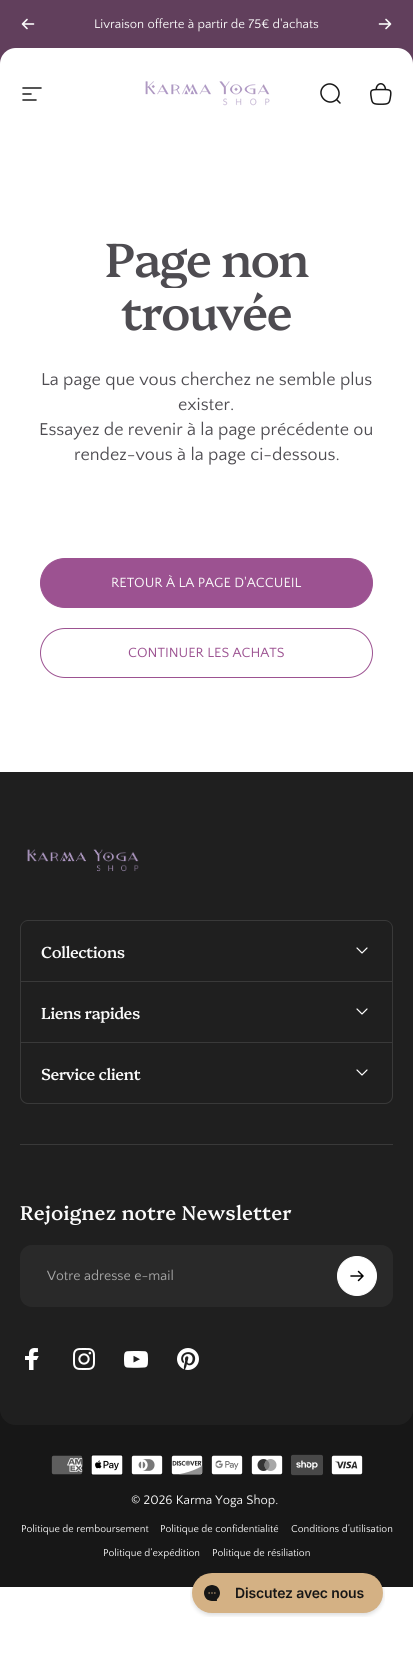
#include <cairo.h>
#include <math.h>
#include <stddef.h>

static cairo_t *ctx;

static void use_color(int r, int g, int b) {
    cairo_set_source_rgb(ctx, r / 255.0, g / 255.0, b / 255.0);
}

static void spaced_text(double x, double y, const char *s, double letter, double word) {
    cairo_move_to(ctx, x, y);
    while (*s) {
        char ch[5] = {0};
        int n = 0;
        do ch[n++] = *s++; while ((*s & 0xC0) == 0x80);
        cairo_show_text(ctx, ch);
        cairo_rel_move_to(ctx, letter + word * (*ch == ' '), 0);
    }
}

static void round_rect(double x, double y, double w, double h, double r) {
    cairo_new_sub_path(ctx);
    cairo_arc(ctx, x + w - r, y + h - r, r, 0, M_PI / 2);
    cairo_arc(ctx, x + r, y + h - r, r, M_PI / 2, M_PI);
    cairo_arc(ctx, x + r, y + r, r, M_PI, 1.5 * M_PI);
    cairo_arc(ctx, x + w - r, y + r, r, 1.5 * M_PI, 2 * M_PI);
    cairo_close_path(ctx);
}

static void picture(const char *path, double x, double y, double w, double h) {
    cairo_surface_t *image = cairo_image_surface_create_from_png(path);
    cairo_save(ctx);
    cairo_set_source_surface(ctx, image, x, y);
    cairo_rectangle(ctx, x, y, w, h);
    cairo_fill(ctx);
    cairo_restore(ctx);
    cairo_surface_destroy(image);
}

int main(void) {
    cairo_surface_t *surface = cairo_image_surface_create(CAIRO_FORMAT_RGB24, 413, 1660);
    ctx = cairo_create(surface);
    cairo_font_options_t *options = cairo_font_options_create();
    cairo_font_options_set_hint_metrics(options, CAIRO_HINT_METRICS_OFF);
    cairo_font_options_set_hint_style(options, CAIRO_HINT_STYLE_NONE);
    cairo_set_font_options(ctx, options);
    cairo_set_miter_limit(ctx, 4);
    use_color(255, 255, 255);
    cairo_paint(ctx);
    use_color(97, 63, 92);
    cairo_rectangle(ctx, 0, 0, 413, 16);
    cairo_fill(ctx);
    cairo_new_path(ctx);
    cairo_move_to(ctx, 16, 0);
    cairo_line_to(ctx, 397, 0);
    cairo_curve_to(ctx, 406, 0, 413, 7, 413, 16);
    cairo_line_to(ctx, 413, 64);
    cairo_line_to(ctx, 0, 64);
    cairo_line_to(ctx, 0, 16);
    cairo_curve_to(ctx, 0, 7, 7, 0, 16, 0);
    cairo_close_path(ctx);
    cairo_fill(ctx);
    cairo_new_path(ctx);
    cairo_move_to(ctx, 27, 19.5);
    cairo_line_to(ctx, 22.5, 24);
    cairo_move_to(ctx, 22.5, 24);
    cairo_line_to(ctx, 27, 28.5);
    cairo_move_to(ctx, 22.5, 24);
    cairo_line_to(ctx, 33.5, 24);
    use_color(250, 250, 250);
    cairo_set_line_width(ctx, 1.6);
    cairo_set_line_cap(ctx, CAIRO_LINE_CAP_ROUND);
    cairo_set_line_join(ctx, CAIRO_LINE_JOIN_ROUND);
    cairo_stroke(ctx);
    cairo_select_font_face(ctx, "Quattrocento Sans", CAIRO_FONT_SLANT_NORMAL, CAIRO_FONT_WEIGHT_NORMAL);
    cairo_set_font_size(ctx, 13);
    cairo_move_to(ctx, 94, 28);
    cairo_show_text(ctx, "Livraison offerte à partir de 75€ d'achats");
    cairo_new_path(ctx);
    cairo_move_to(ctx, 379.5, 24);
    cairo_line_to(ctx, 390.5, 24);
    cairo_move_to(ctx, 390.5, 24);
    cairo_line_to(ctx, 386, 19.5);
    cairo_move_to(ctx, 390.5, 24);
    cairo_line_to(ctx, 386, 28.5);
    cairo_stroke(ctx);
    use_color(255, 255, 255);
    cairo_new_path(ctx);
    cairo_move_to(ctx, 16, 48);
    cairo_line_to(ctx, 397, 48);
    cairo_curve_to(ctx, 406, 48, 413, 55, 413, 64);
    cairo_line_to(ctx, 413, 140);
    cairo_line_to(ctx, 0, 140);
    cairo_line_to(ctx, 0, 64);
    cairo_curve_to(ctx, 0, 55, 7, 48, 16, 48);
    cairo_close_path(ctx);
    cairo_fill(ctx);
    cairo_new_path(ctx);
    cairo_move_to(ctx, 23, 88);
    cairo_line_to(ctx, 41, 88);
    cairo_move_to(ctx, 23, 94);
    cairo_line_to(ctx, 31, 94);
    cairo_move_to(ctx, 23, 100);
    cairo_line_to(ctx, 36, 100);
    use_color(23, 23, 23);
    cairo_set_line_width(ctx, 1.5);
    cairo_set_line_join(ctx, CAIRO_LINE_JOIN_MITER);
    cairo_stroke(ctx);
    picture("img1.png", 145, 81, 125, 25);
    cairo_new_path(ctx);
    cairo_move_to(ctx, 340, 103);
    cairo_line_to(ctx, 336.5, 99.5);
    cairo_move_to(ctx, 336.5, 99.5);
    cairo_curve_to(ctx, 344.5, 91, 332, 78.5, 323.5, 86.5);
    cairo_curve_to(ctx, 315.5, 95, 328, 107.5, 336.5, 99.5);
    cairo_close_path(ctx);
    cairo_stroke(ctx);
    picture("img2.png", 370, 83, 22, 22);
    cairo_save(ctx);
    cairo_rectangle(ctx, 103, 225, 110, 63);
    cairo_clip(ctx);
    cairo_select_font_face(ctx, "Platypi Medium", CAIRO_FONT_SLANT_NORMAL, CAIRO_FONT_WEIGHT_NORMAL);
    cairo_set_font_size(ctx, 48);
    use_color(78, 76, 81);
    spaced_text(105, 277, "Page", -2, 0);
    cairo_restore(ctx);
    cairo_select_font_face(ctx, "Platypi Medium", CAIRO_FONT_SLANT_NORMAL, CAIRO_FONT_WEIGHT_NORMAL);
    cairo_set_font_size(ctx, 48);
    use_color(78, 76, 81);
    spaced_text(221, 277, "non", -2, 0);
    spaced_text(121, 330, "trouvée", -2, 0);
    cairo_select_font_face(ctx, "Quattrocento Sans", CAIRO_FONT_SLANT_NORMAL, CAIRO_FONT_WEIGHT_NORMAL);
    cairo_set_font_size(ctx, 18);
    cairo_move_to(ctx, 41, 385);
    cairo_show_text(ctx, "La page que vous cherchez ne semble plus");
    cairo_move_to(ctx, 178, 410);
    cairo_show_text(ctx, "exister.");
    cairo_move_to(ctx, 39, 435);
    cairo_show_text(ctx, "Essayez de revenir à la page précédente ou");
    cairo_move_to(ctx, 74, 460);
    cairo_show_text(ctx, "rendez-vous à la page ci-dessous.");
    use_color(156, 82, 145);
    round_rect(40.5, 558.5, 332, 49, 24.5);
    cairo_fill_preserve(ctx);
    cairo_set_line_width(ctx, 1);
    cairo_set_line_cap(ctx, CAIRO_LINE_CAP_BUTT);
    cairo_stroke(ctx);
    cairo_set_font_size(ctx, 14);
    use_color(250, 250, 250);
    cairo_move_to(ctx, 111, 587);
    cairo_show_text(ctx, "RETOUR À LA PAGE D'ACCUEIL");
    round_rect(40.5, 628.5, 332, 49, 24.5);
    use_color(156, 82, 145);
    cairo_stroke(ctx);
    cairo_move_to(ctx, 128, 657);
    cairo_show_text(ctx, "CONTINUER LES ACHATS");
    use_color(23, 23, 23);
    cairo_rectangle(ctx, 0, 1409, 413, 178);
    cairo_fill(ctx);
    use_color(31, 31, 31);
    cairo_new_path(ctx);
    cairo_move_to(ctx, 0, 772);
    cairo_line_to(ctx, 413, 772);
    cairo_line_to(ctx, 413, 1409);
    cairo_curve_to(ctx, 413, 1418, 406, 1425, 397, 1425);
    cairo_line_to(ctx, 16, 1425);
    cairo_curve_to(ctx, 7, 1425, 0, 1418, 0, 1409);
    cairo_close_path(ctx);
    cairo_fill(ctx);
    picture("img3.png", 27, 849, 112, 23);
    use_color(57, 57, 57);
    cairo_set_fill_rule(ctx, CAIRO_FILL_RULE_EVEN_ODD);
    cairo_new_path(ctx);
    cairo_move_to(ctx, 28, 920);
    cairo_line_to(ctx, 385, 920);
    cairo_curve_to(ctx, 389, 920, 393, 924, 393, 928);
    cairo_line_to(ctx, 393, 981);
    cairo_line_to(ctx, 20, 981);
    cairo_line_to(ctx, 20, 928);
    cairo_curve_to(ctx, 20, 924, 24, 920, 28, 920);
    cairo_close_path(ctx);
    cairo_move_to(ctx, 28, 921);
    cairo_line_to(ctx, 385, 921);
    cairo_curve_to(ctx, 389, 921, 392, 924, 392, 928);
    cairo_line_to(ctx, 392, 981);
    cairo_line_to(ctx, 21, 981);
    cairo_line_to(ctx, 21, 928);
    cairo_curve_to(ctx, 21, 924, 24, 921, 28, 921);
    cairo_close_path(ctx);
    cairo_fill(ctx);
    cairo_select_font_face(ctx, "Platypi Medium", CAIRO_FONT_SLANT_NORMAL, CAIRO_FONT_WEIGHT_NORMAL);
    cairo_set_font_size(ctx, 16);
    use_color(250, 250, 250);
    spaced_text(41, 958, "Collections", -0.5, 0);
    cairo_new_path(ctx);
    cairo_move_to(ctx, 357, 948);
    cairo_line_to(ctx, 362, 953);
    cairo_line_to(ctx, 367, 948);
    use_color(255, 255, 255);
    cairo_set_line_width(ctx, 1.2);
    cairo_set_line_cap(ctx, CAIRO_LINE_CAP_ROUND);
    cairo_set_line_join(ctx, CAIRO_LINE_JOIN_ROUND);
    cairo_stroke(ctx);
    use_color(57, 57, 57);
    cairo_set_fill_rule(ctx, CAIRO_FILL_RULE_WINDING);
    cairo_new_path(ctx);
    cairo_move_to(ctx, 20, 981);
    cairo_line_to(ctx, 393, 981);
    cairo_line_to(ctx, 392, 982);
    cairo_line_to(ctx, 21, 982);
    cairo_close_path(ctx);
    cairo_fill(ctx);
    cairo_set_source_rgba(ctx, 1, 1, 1, 0.11);
    cairo_new_path(ctx);
    cairo_move_to(ctx, 393, 981);
    cairo_line_to(ctx, 393, 1042);
    cairo_line_to(ctx, 392, 1042);
    cairo_line_to(ctx, 392, 982);
    cairo_close_path(ctx);
    cairo_fill(ctx);
    cairo_new_path(ctx);
    cairo_move_to(ctx, 20, 1042);
    cairo_line_to(ctx, 20, 981);
    cairo_line_to(ctx, 21, 982);
    cairo_line_to(ctx, 21, 1042);
    cairo_close_path(ctx);
    cairo_fill(ctx);
    use_color(250, 250, 250);
    spaced_text(41, 1019, "Liens rapides", -0.5, 0);
    cairo_new_path(ctx);
    cairo_move_to(ctx, 357, 1009);
    cairo_line_to(ctx, 362, 1014);
    cairo_line_to(ctx, 367, 1009);
    use_color(255, 255, 255);
    cairo_stroke(ctx);
    cairo_new_path(ctx);
    cairo_move_to(ctx, 20.5, 1042.5);
    cairo_line_to(ctx, 392.5, 1042.5);
    cairo_line_to(ctx, 392.5, 1096);
    cairo_curve_to(ctx, 392.5, 1100, 389, 1103.5, 385, 1103.5);
    cairo_line_to(ctx, 28, 1103.5);
    cairo_curve_to(ctx, 24, 1103.5, 20.5, 1100, 20.5, 1096);
    cairo_close_path(ctx);
    use_color(57, 57, 57);
    cairo_set_line_width(ctx, 1);
    cairo_set_line_cap(ctx, CAIRO_LINE_CAP_BUTT);
    cairo_set_line_join(ctx, CAIRO_LINE_JOIN_MITER);
    cairo_stroke(ctx);
    use_color(250, 250, 250);
    spaced_text(41, 1080, "Service client", -0.5, 0);
    cairo_new_path(ctx);
    cairo_move_to(ctx, 357, 1070);
    cairo_line_to(ctx, 362, 1075);
    cairo_line_to(ctx, 367, 1070);
    use_color(255, 255, 255);
    cairo_set_line_width(ctx, 1.2);
    cairo_set_line_cap(ctx, CAIRO_LINE_CAP_ROUND);
    cairo_set_line_join(ctx, CAIRO_LINE_JOIN_ROUND);
    cairo_stroke(ctx);
    use_color(57, 57, 57);
    cairo_rectangle(ctx, 20, 1144, 373, 1);
    cairo_fill(ctx);
    cairo_set_font_size(ctx, 20);
    use_color(250, 250, 250);
    cairo_move_to(ctx, 20, 1220);
    cairo_show_text(ctx, "Rejoignez notre Newsletter");
    use_color(41, 41, 41);
    round_rect(20, 1245, 373, 62, 12);
    cairo_fill(ctx);
    cairo_select_font_face(ctx, "Quattrocento Sans", CAIRO_FONT_SLANT_NORMAL, CAIRO_FONT_WEIGHT_NORMAL);
    cairo_set_font_size(ctx, 14);
    use_color(169, 169, 169);
    cairo_move_to(ctx, 47, 1280);
    cairo_show_text(ctx, "Votre adresse e-mail");
    use_color(255, 255, 255);
    cairo_new_path(ctx);
    cairo_arc(ctx, 357, 1276, 19.5, 0, 2 * M_PI);
    cairo_fill_preserve(ctx);
    cairo_set_line_width(ctx, 1);
    cairo_set_line_cap(ctx, CAIRO_LINE_CAP_BUTT);
    cairo_set_line_join(ctx, CAIRO_LINE_JOIN_MITER);
    cairo_stroke(ctx);
    cairo_new_path(ctx);
    cairo_move_to(ctx, 351, 1276);
    cairo_line_to(ctx, 363, 1276);
    cairo_move_to(ctx, 363, 1276);
    cairo_line_to(ctx, 358.5, 1271.5);
    cairo_move_to(ctx, 363, 1276);
    cairo_line_to(ctx, 358.5, 1280.5);
    use_color(0, 0, 0);
    cairo_set_line_width(ctx, 1.5);
    cairo_set_line_cap(ctx, CAIRO_LINE_CAP_ROUND);
    cairo_set_line_join(ctx, CAIRO_LINE_JOIN_ROUND);
    cairo_stroke(ctx);
    picture("img4.png", 25, 1348, 14, 22);
    picture("img5.png", 73, 1348, 22, 22);
    picture("img6.png", 124, 1351, 24, 17);
    picture("img7.png", 177, 1348, 22, 22);
    picture("img8.png", 51, 1455, 32, 20);
    picture("img9.png", 91, 1454, 32, 22);
    picture("img10.png", 131, 1455, 32, 20);
    picture("img11.png", 171, 1455, 32, 20);
    picture("img12.png", 211, 1455, 32, 20);
    picture("img13.png", 251, 1455, 32, 20);
    picture("img14.png", 291, 1454, 32, 22);
    picture("img15.png", 331, 1455, 32, 20);
    cairo_set_font_size(ctx, 13);
    use_color(250, 250, 250);
    cairo_move_to(ctx, 131, 1504);
    cairo_show_text(ctx, "© 2026 Karma Yoga Shop.");
    cairo_set_font_size(ctx, 10.4);
    cairo_move_to(ctx, 21, 1532);
    cairo_show_text(ctx, "Politique de remboursement");
    cairo_move_to(ctx, 160, 1532);
    cairo_show_text(ctx, "Politique de confidentialité");
    cairo_move_to(ctx, 291, 1532);
    cairo_show_text(ctx, "Conditions d’utilisation");
    cairo_move_to(ctx, 103, 1556);
    cairo_show_text(ctx, "Politique d’expédition");
    cairo_move_to(ctx, 212, 1556);
    cairo_show_text(ctx, "Politique de résiliation");
    picture("img16.png", 190, 1573, 195, 44);
    cairo_surface_write_to_png(surface, "result.png");
    cairo_font_options_destroy(options);
    cairo_destroy(ctx);
    cairo_surface_destroy(surface);
    return 0;
}
